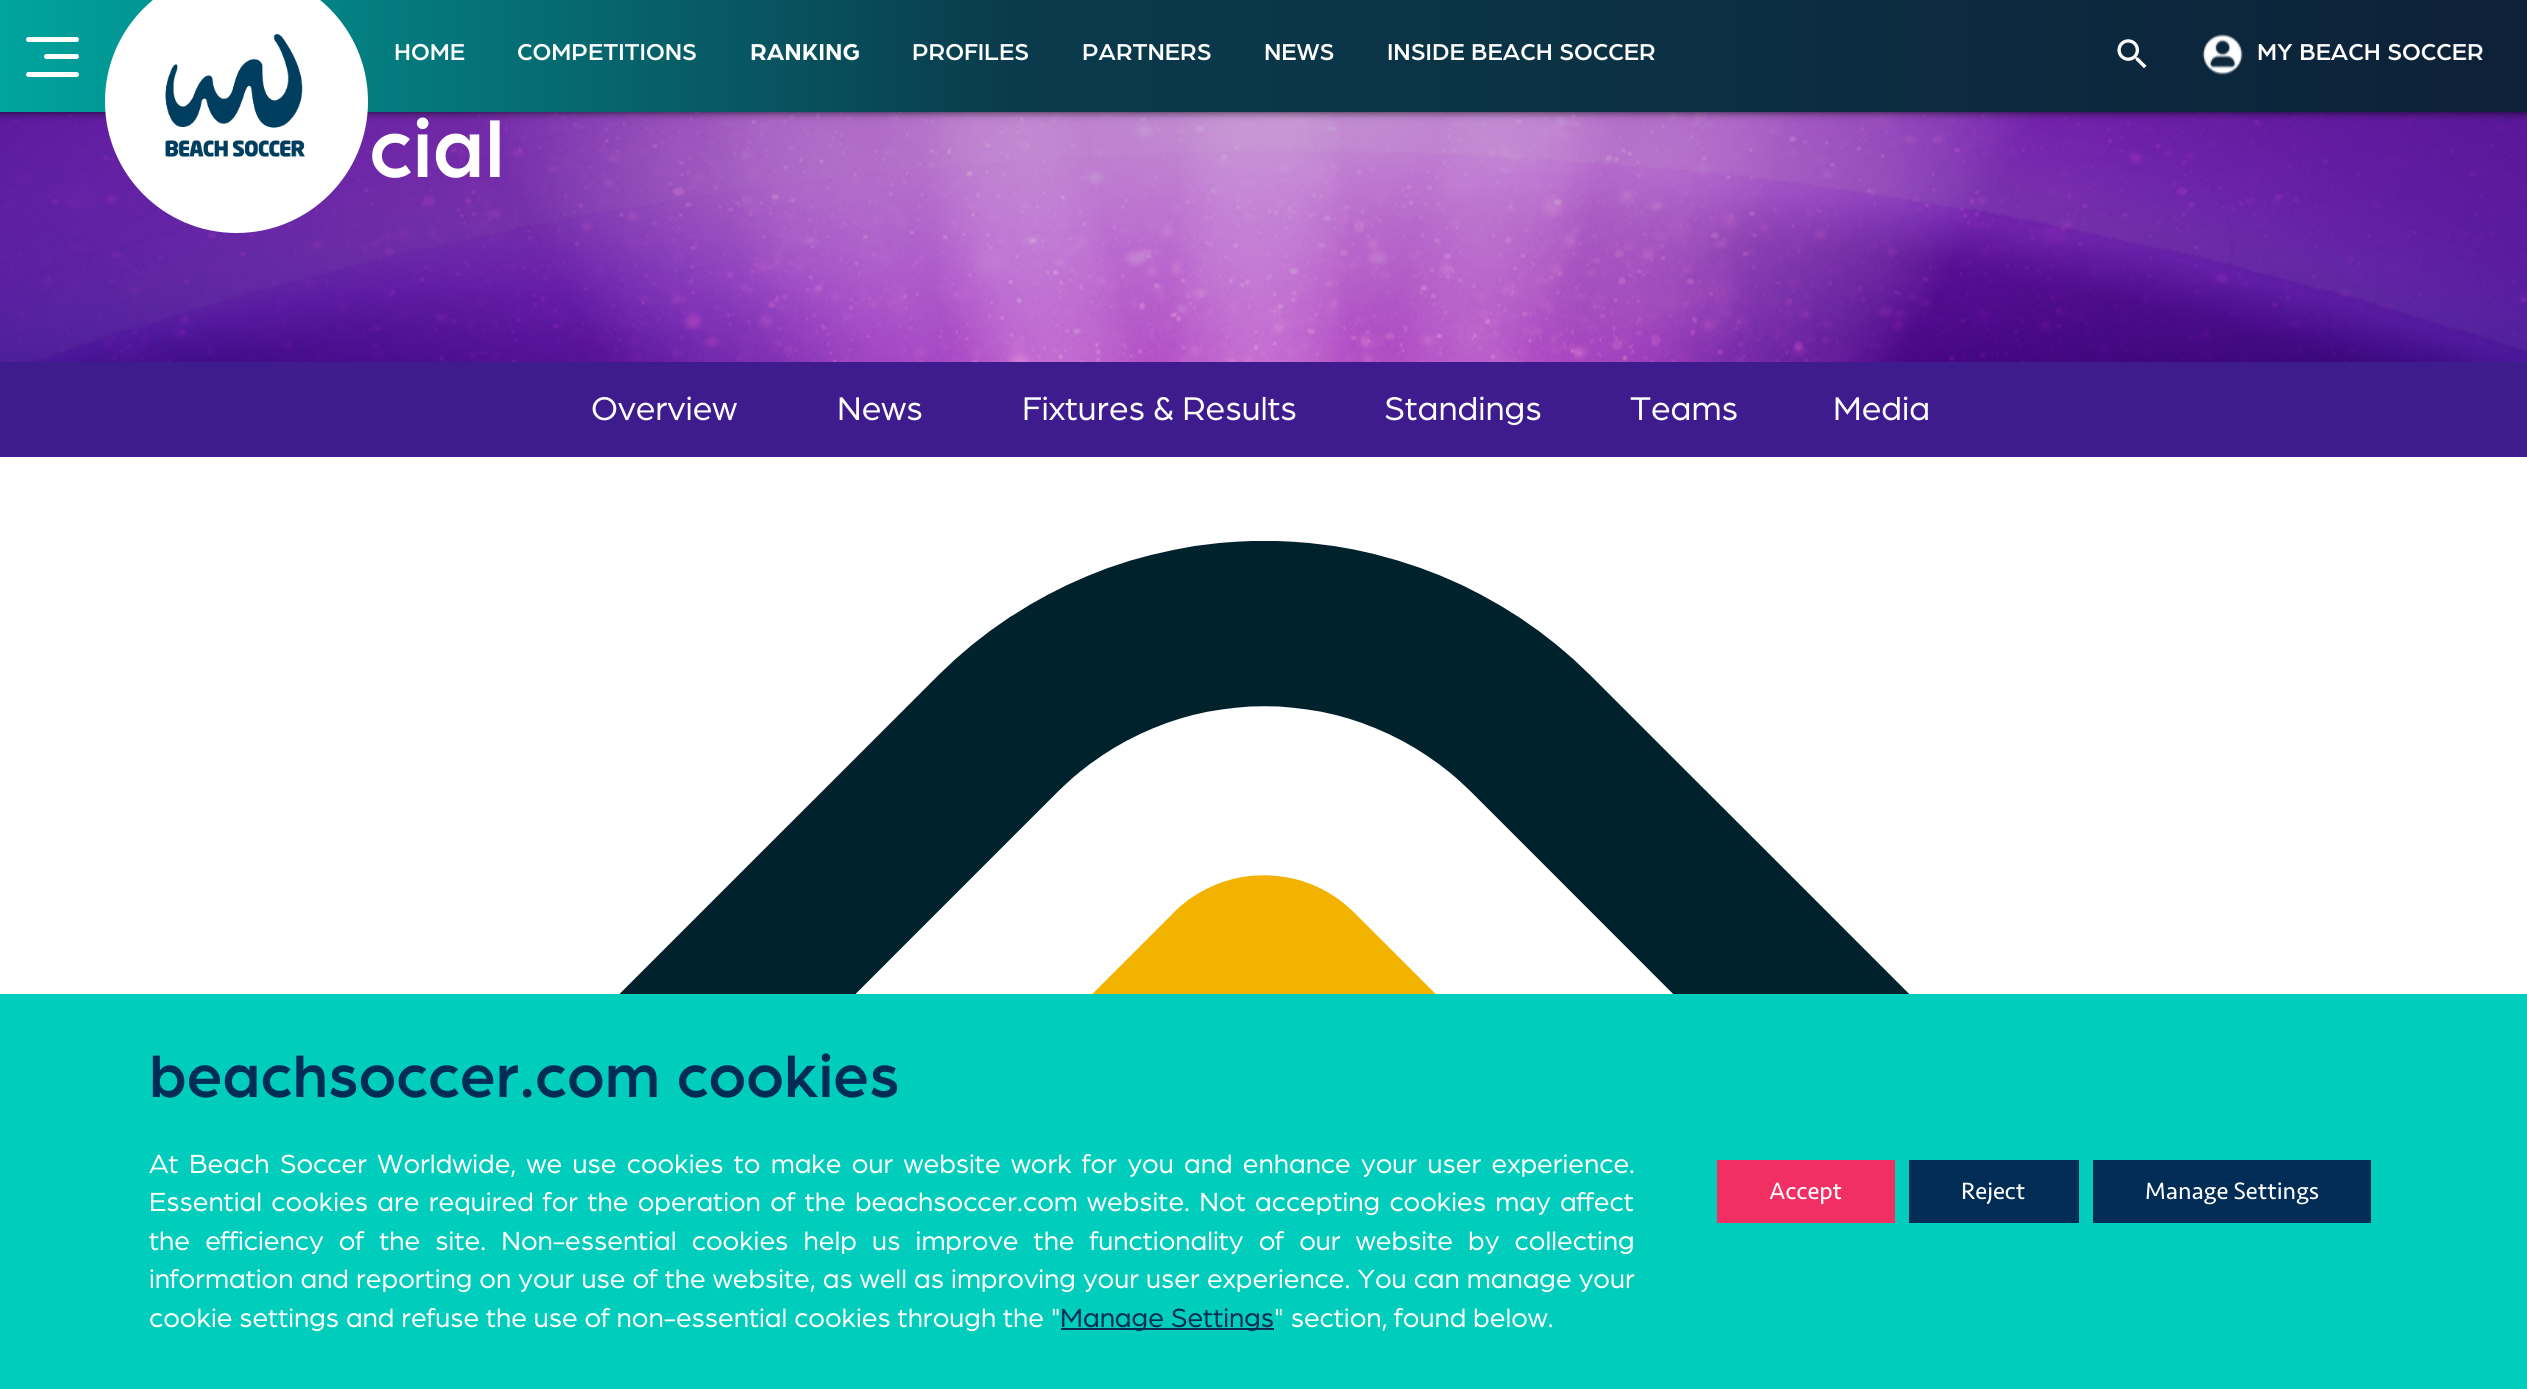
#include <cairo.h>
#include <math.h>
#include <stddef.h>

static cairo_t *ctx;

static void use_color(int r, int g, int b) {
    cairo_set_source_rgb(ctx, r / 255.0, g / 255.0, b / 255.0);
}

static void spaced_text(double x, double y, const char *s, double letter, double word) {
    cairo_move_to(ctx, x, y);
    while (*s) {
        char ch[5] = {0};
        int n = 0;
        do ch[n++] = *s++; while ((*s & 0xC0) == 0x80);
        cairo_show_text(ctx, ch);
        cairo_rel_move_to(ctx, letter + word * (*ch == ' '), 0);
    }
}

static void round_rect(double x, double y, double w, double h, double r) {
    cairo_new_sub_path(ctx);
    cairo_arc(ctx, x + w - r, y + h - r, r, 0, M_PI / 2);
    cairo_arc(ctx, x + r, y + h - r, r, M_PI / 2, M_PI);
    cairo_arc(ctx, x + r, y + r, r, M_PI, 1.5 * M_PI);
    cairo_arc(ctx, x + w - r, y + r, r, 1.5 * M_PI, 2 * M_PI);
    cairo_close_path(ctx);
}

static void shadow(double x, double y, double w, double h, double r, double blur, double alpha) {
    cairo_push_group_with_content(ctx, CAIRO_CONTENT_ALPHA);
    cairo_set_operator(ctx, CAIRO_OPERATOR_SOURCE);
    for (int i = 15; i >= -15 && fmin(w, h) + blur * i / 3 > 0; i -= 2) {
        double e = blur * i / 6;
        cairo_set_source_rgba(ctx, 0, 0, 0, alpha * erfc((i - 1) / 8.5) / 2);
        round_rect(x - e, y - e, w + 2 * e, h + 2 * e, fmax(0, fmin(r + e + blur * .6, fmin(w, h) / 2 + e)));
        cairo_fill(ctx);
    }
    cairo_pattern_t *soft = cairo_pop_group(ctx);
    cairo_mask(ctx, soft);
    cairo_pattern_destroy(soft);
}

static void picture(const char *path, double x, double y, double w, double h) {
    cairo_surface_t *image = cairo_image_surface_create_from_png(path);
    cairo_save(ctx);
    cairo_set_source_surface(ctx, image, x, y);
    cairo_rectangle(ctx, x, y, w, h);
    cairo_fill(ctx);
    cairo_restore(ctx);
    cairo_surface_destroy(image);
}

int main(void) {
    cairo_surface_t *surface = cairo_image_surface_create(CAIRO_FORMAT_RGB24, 2527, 1389);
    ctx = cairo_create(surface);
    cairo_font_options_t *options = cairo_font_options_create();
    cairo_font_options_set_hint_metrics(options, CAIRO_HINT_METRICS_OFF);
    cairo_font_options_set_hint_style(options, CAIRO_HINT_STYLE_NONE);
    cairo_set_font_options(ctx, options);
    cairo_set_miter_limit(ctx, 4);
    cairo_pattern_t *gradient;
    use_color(255, 255, 255);
    cairo_paint(ctx);
    picture("img4.png", 0, 112, 2527, 250);
    use_color(0, 0, 0);
    shadow(0, 0, 2527, 112, 0, 4.5, 0.8);
    gradient = cairo_pattern_create_linear(0, 56, 2527, 56);
    cairo_pattern_add_color_stop_rgba(gradient, 0, 0, 0.643, 0.62, 1);
    cairo_pattern_add_color_stop_rgba(gradient, 0.4, 0.039, 0.231, 0.298, 1);
    cairo_pattern_add_color_stop_rgba(gradient, 1, 0.051, 0.129, 0.22, 1);
    cairo_set_source(ctx, gradient);
    cairo_pattern_destroy(gradient);
    cairo_rectangle(ctx, 0, 0, 2527, 112);
    cairo_fill(ctx);
    use_color(255, 255, 255);
    round_rect(26, 37, 53, 5, 2.5);
    cairo_fill(ctx);
    round_rect(44, 54, 35, 5, 2.5);
    cairo_fill(ctx);
    round_rect(26, 72, 53, 5, 2.5);
    cairo_fill(ctx);
    cairo_arc(ctx, 236.5, 101.5, 131.5, 0, 2 * M_PI);
    cairo_fill(ctx);
    picture("img1.png", 165, 33, 140, 124);
    cairo_select_font_face(ctx, "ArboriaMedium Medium", CAIRO_FONT_SLANT_NORMAL, CAIRO_FONT_WEIGHT_NORMAL);
    cairo_set_font_size(ctx, 24.5);
    cairo_move_to(ctx, 394, 60);
    cairo_show_text(ctx, "HOME");
    cairo_move_to(ctx, 517, 60);
    cairo_show_text(ctx, "COMPETITIONS");
    cairo_select_font_face(ctx, "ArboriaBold", CAIRO_FONT_SLANT_NORMAL, CAIRO_FONT_WEIGHT_BOLD);
    cairo_move_to(ctx, 750, 60);
    cairo_show_text(ctx, "RANKING");
    cairo_select_font_face(ctx, "ArboriaMedium Medium", CAIRO_FONT_SLANT_NORMAL, CAIRO_FONT_WEIGHT_NORMAL);
    cairo_move_to(ctx, 912, 60);
    cairo_show_text(ctx, "PROFILES");
    cairo_move_to(ctx, 1082, 60);
    cairo_show_text(ctx, "PARTNERS");
    cairo_move_to(ctx, 1264, 60);
    cairo_show_text(ctx, "NEWS");
    cairo_move_to(ctx, 1387, 60);
    cairo_show_text(ctx, "INSIDE BEACH SOCCER");
    picture("img2.png", 2117, 39, 30, 30);
    picture("img3.png", 2202, 34, 41, 41);
    cairo_move_to(ctx, 2257, 60);
    cairo_show_text(ctx, "MY BEACH SOCCER");
    cairo_set_font_size(ctx, 86);
    cairo_move_to(ctx, 369, 177);
    cairo_show_text(ctx, "cial");
    use_color(63, 28, 142);
    cairo_rectangle(ctx, 0, 362, 2527, 95);
    cairo_fill(ctx);
    cairo_select_font_face(ctx, "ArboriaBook", CAIRO_FONT_SLANT_NORMAL, CAIRO_FONT_WEIGHT_NORMAL);
    cairo_set_font_size(ctx, 35);
    use_color(255, 255, 255);
    cairo_move_to(ctx, 591, 420);
    cairo_show_text(ctx, "Overview");
    cairo_move_to(ctx, 837, 420);
    cairo_show_text(ctx, "News");
    cairo_move_to(ctx, 1022, 420);
    cairo_show_text(ctx, "Fixtures & Results");
    cairo_move_to(ctx, 1384, 420);
    cairo_show_text(ctx, "Standings");
    cairo_move_to(ctx, 1630, 420);
    cairo_show_text(ctx, "Teams");
    cairo_move_to(ctx, 1833, 420);
    cairo_show_text(ctx, "Media");
    picture("img5.png", 288, 541, 1952, 453);
    use_color(0, 205, 188);
    cairo_rectangle(ctx, 0, 994, 2527, 395);
    cairo_fill(ctx);
    cairo_select_font_face(ctx, "ArboriaMedium Medium", CAIRO_FONT_SLANT_NORMAL, CAIRO_FONT_WEIGHT_NORMAL);
    cairo_set_font_size(ctx, 63);
    use_color(0, 44, 85);
    cairo_move_to(ctx, 149, 1097);
    cairo_show_text(ctx, "beachsoccer.com cookies");
    cairo_select_font_face(ctx, "ArboriaBook", CAIRO_FONT_SLANT_NORMAL, CAIRO_FONT_WEIGHT_NORMAL);
    cairo_set_font_size(ctx, 28);
    use_color(255, 255, 255);
    spaced_text(149, 1173, "At Beach Soccer Worldwide, we use cookies to make our website work for you and enhance your user experience.", 0, 3.5);
    spaced_text(149, 1211, "Essential cookies are required for the operation of the beachsoccer.com website. Not accepting cookies may affect", 0, 2.5);
    spaced_text(149, 1250, "the efficiency of the site. Non-essential cookies help us improve the functionality of our website by collecting", 0, 8.4);
    spaced_text(149, 1288, "information and reporting on your use of the website, as well as improving your user experience. You can manage your", 0, 0.25);
    cairo_move_to(ctx, 149, 1327);
    cairo_show_text(ctx, "cookie settings and refuse the use of non-essential cookies through the \"");
    use_color(0, 44, 85);
    cairo_rectangle(ctx, 1061, 1328, 213, 2);
    cairo_fill(ctx);
    cairo_move_to(ctx, 1060, 1327);
    cairo_show_text(ctx, "Manage Settings");
    use_color(255, 255, 255);
    cairo_move_to(ctx, 1274, 1327);
    cairo_show_text(ctx, "\" section, found below.");
    use_color(242, 47, 98);
    cairo_rectangle(ctx, 1717, 1160, 178, 63);
    cairo_fill(ctx);
    cairo_select_font_face(ctx, "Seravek", CAIRO_FONT_SLANT_NORMAL, CAIRO_FONT_WEIGHT_NORMAL);
    cairo_set_font_size(ctx, 24.5);
    use_color(255, 255, 255);
    cairo_move_to(ctx, 1769, 1199);
    cairo_show_text(ctx, "Accept");
    use_color(0, 44, 85);
    cairo_rectangle(ctx, 1909, 1160, 170, 63);
    cairo_fill(ctx);
    use_color(255, 255, 255);
    cairo_move_to(ctx, 1961, 1199);
    cairo_show_text(ctx, "Reject");
    use_color(0, 44, 85);
    cairo_rectangle(ctx, 2093, 1160, 278, 63);
    cairo_fill(ctx);
    use_color(255, 255, 255);
    cairo_move_to(ctx, 2145, 1199);
    cairo_show_text(ctx, "Manage Settings");
    cairo_surface_write_to_png(surface, "result.png");
    cairo_font_options_destroy(options);
    cairo_destroy(ctx);
    cairo_surface_destroy(surface);
    return 0;
}
